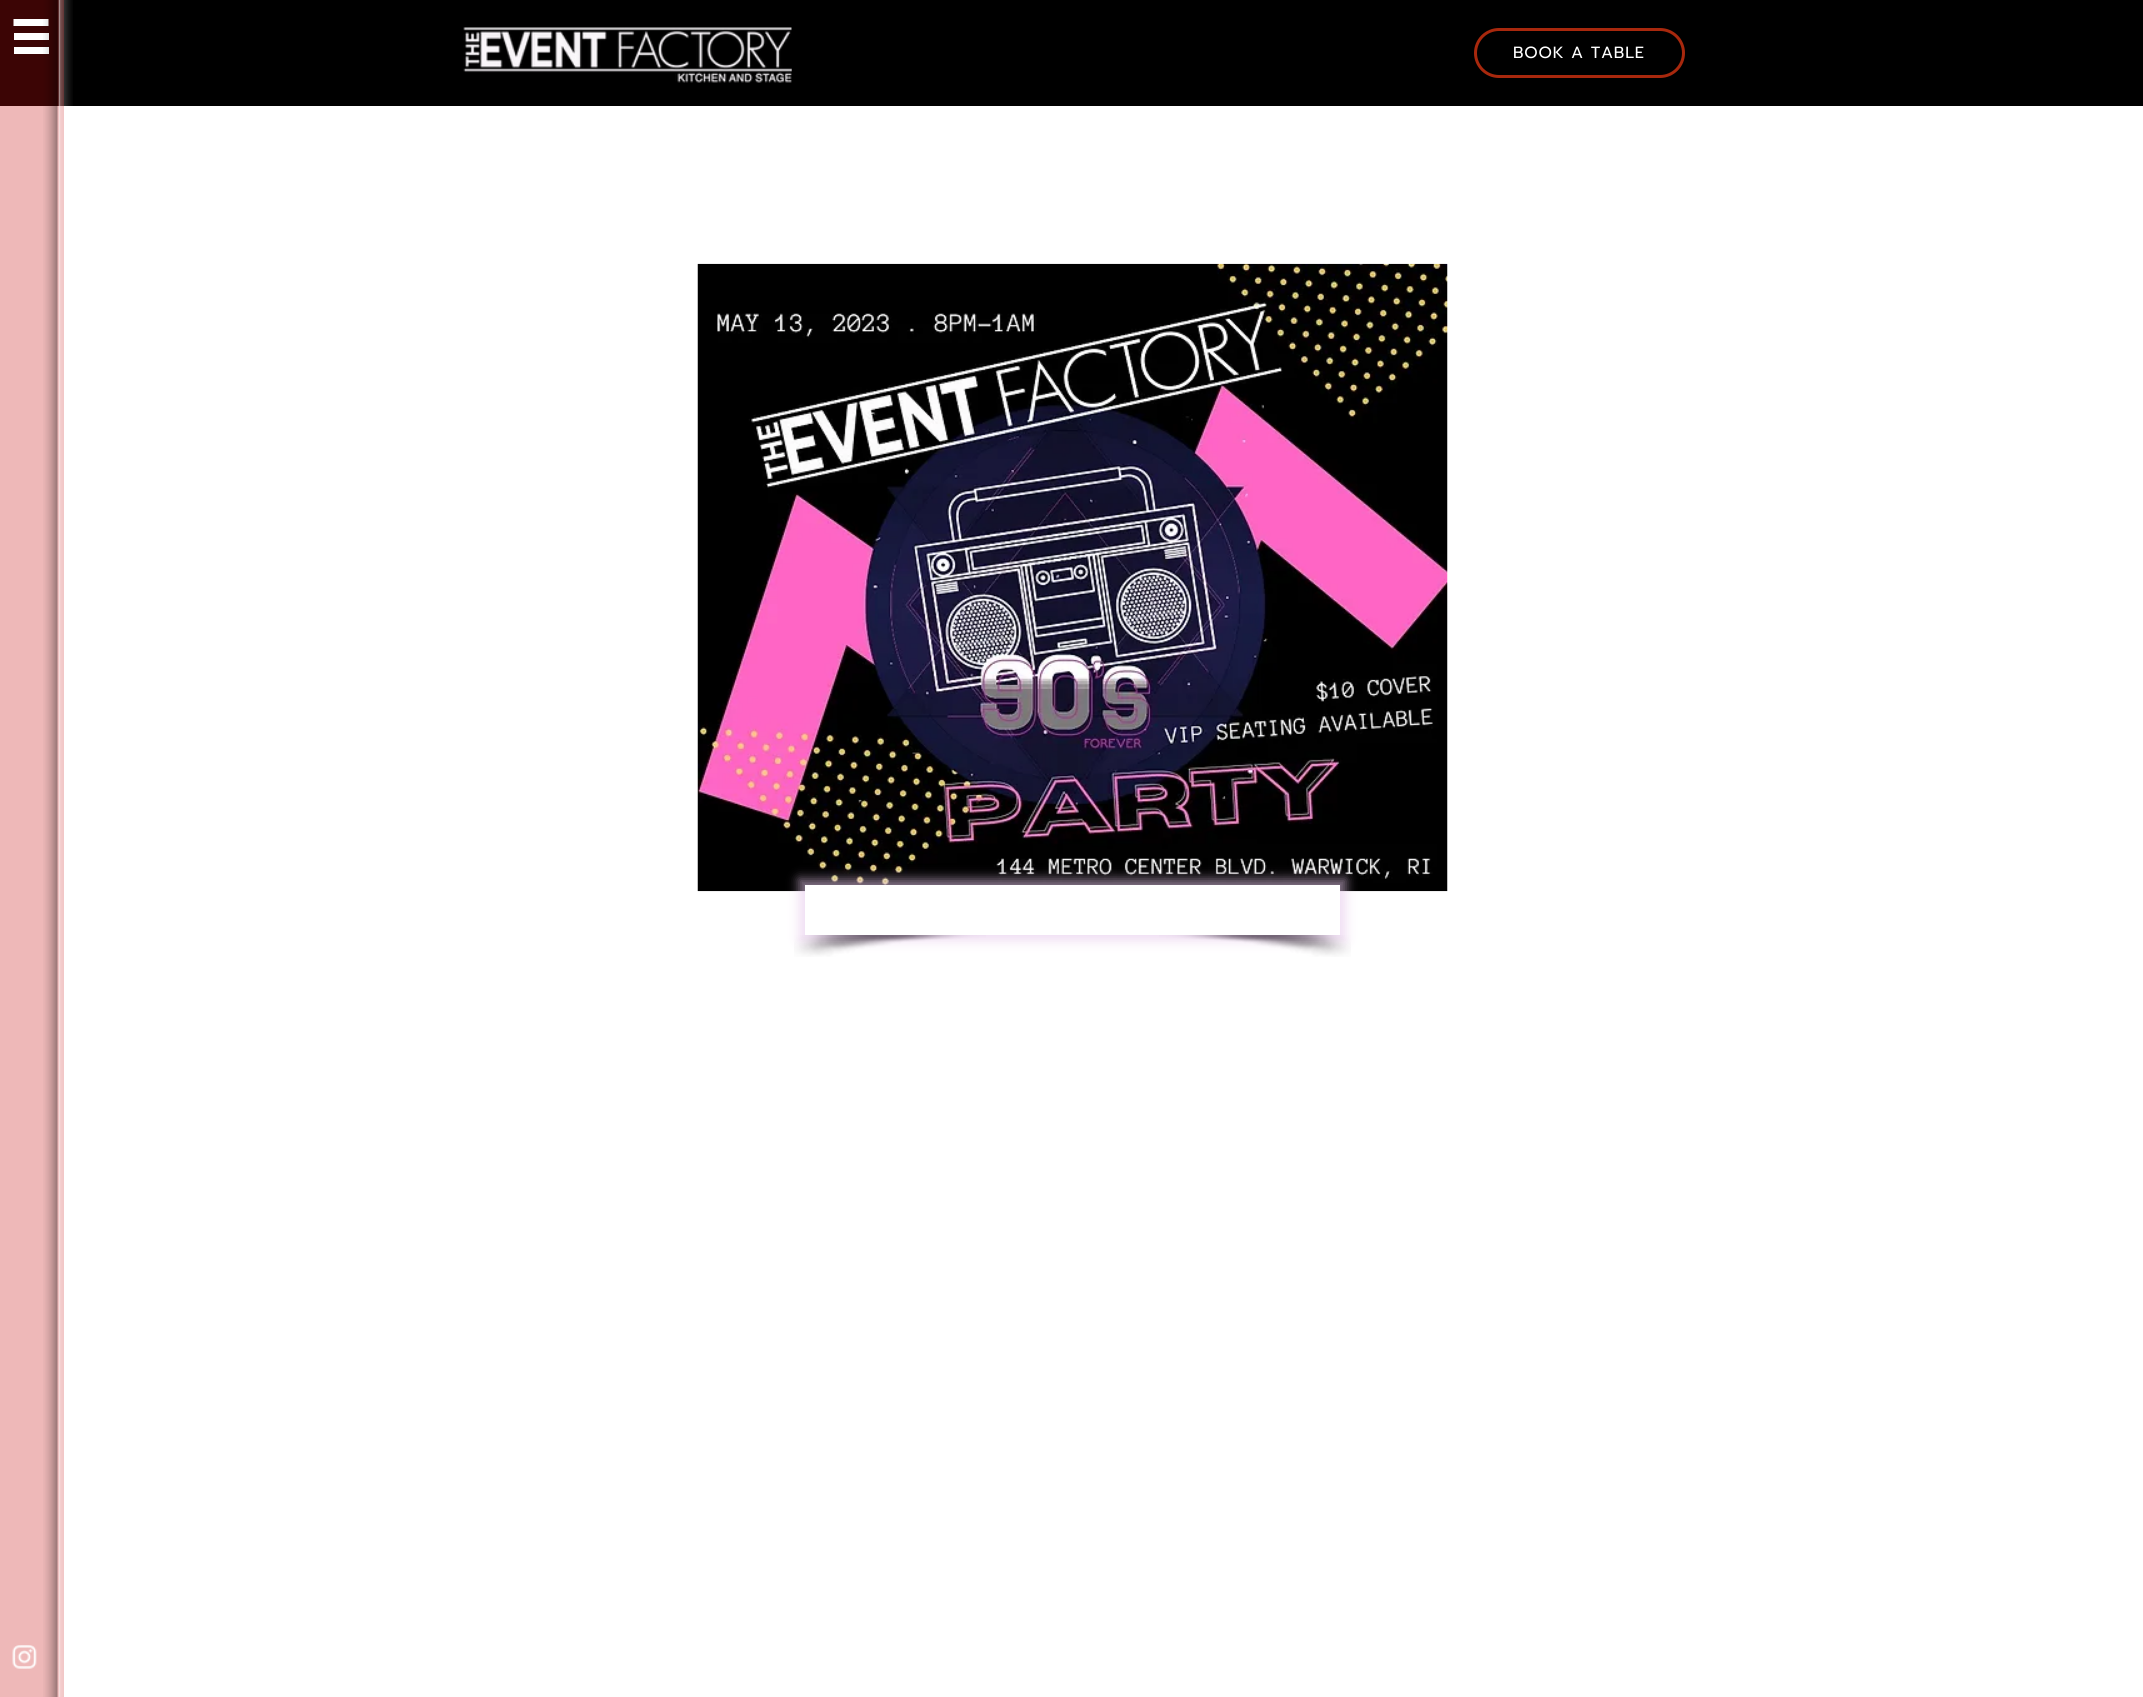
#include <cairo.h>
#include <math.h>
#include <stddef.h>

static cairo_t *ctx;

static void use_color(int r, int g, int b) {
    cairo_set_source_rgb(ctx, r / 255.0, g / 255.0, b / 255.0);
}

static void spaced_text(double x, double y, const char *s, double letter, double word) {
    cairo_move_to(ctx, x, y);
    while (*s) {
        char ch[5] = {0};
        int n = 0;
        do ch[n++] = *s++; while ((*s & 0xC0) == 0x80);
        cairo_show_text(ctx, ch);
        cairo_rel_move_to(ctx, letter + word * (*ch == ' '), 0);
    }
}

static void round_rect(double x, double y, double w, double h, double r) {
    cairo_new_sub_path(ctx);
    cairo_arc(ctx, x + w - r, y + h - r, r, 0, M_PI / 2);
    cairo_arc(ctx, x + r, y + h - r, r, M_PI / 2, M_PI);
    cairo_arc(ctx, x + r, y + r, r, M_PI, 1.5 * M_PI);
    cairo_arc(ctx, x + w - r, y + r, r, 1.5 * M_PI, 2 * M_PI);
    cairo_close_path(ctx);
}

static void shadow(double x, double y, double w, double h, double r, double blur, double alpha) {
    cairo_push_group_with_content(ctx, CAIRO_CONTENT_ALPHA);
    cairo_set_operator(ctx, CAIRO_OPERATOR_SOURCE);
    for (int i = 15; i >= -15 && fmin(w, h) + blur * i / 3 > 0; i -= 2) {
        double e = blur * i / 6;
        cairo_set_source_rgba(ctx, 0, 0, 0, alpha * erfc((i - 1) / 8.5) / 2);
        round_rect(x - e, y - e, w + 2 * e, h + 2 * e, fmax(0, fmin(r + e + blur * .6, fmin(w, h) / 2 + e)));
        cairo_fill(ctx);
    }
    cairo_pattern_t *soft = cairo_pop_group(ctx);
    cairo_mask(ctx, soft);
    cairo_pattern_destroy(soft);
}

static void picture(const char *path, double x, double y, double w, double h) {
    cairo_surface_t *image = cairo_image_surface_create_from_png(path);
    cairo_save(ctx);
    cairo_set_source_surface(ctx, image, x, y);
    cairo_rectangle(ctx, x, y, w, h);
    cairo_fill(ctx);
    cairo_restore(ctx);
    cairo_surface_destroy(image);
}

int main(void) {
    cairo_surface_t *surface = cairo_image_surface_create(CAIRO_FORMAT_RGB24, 2143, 1697);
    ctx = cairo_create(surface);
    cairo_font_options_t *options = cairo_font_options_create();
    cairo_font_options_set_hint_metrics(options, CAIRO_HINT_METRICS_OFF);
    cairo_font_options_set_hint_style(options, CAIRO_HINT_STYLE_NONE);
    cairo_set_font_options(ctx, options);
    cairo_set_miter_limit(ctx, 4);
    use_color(255, 255, 255);
    cairo_paint(ctx);
    use_color(238, 184, 184);
    cairo_rectangle(ctx, 0, 106, 64, 1591);
    cairo_fill(ctx);
    use_color(60, 5, 5);
    cairo_rectangle(ctx, 0, 0, 64, 106);
    cairo_fill(ctx);
    use_color(255, 255, 255);
    cairo_new_path(ctx);
    cairo_move_to(ctx, 13.5, 26);
    cairo_line_to(ctx, 13.5, 19);
    cairo_line_to(ctx, 48.5, 19);
    cairo_line_to(ctx, 48.5, 26);
    cairo_line_to(ctx, 14, 26);
    cairo_close_path(ctx);
    cairo_fill(ctx);
    cairo_rectangle(ctx, 14, 33, 35, 7);
    cairo_fill(ctx);
    cairo_rectangle(ctx, 14, 47, 35, 7);
    cairo_fill(ctx);
    use_color(0, 0, 0);
    cairo_rectangle(ctx, 64, 0, 2079, 106);
    cairo_fill(ctx);
    picture("img1.png", 43, 0, 30, 1697);
    picture("img2.png", 463, 27, 329, 56);
    round_rect(1475.5, 29.5, 208, 47, 23.5);
    use_color(168, 40, 13);
    cairo_set_line_width(ctx, 3);
    cairo_stroke(ctx);
    cairo_select_font_face(ctx, "Prompt", CAIRO_FONT_SLANT_NORMAL, CAIRO_FONT_WEIGHT_NORMAL);
    cairo_set_font_size(ctx, 16.25);
    use_color(255, 255, 255);
    spaced_text(1513, 58, "BOOK A TABLE", 0.75, 0);
    picture("img3.png", 697, 263, 751, 629);
    picture("img4.png", 794, 935, 192, 22);
    picture("img5.png", 1159, 935, 192, 22);
    use_color(230, 199, 235);
    shadow(799, 879, 547, 62, 0, 5.5, 0.6);
    use_color(255, 255, 255);
    cairo_rectangle(ctx, 805, 885, 535, 50);
    cairo_fill(ctx);
    picture("img6.png", 12, 1645, 25, 24);
    cairo_surface_write_to_png(surface, "result.png");
    cairo_font_options_destroy(options);
    cairo_destroy(ctx);
    cairo_surface_destroy(surface);
    return 0;
}
